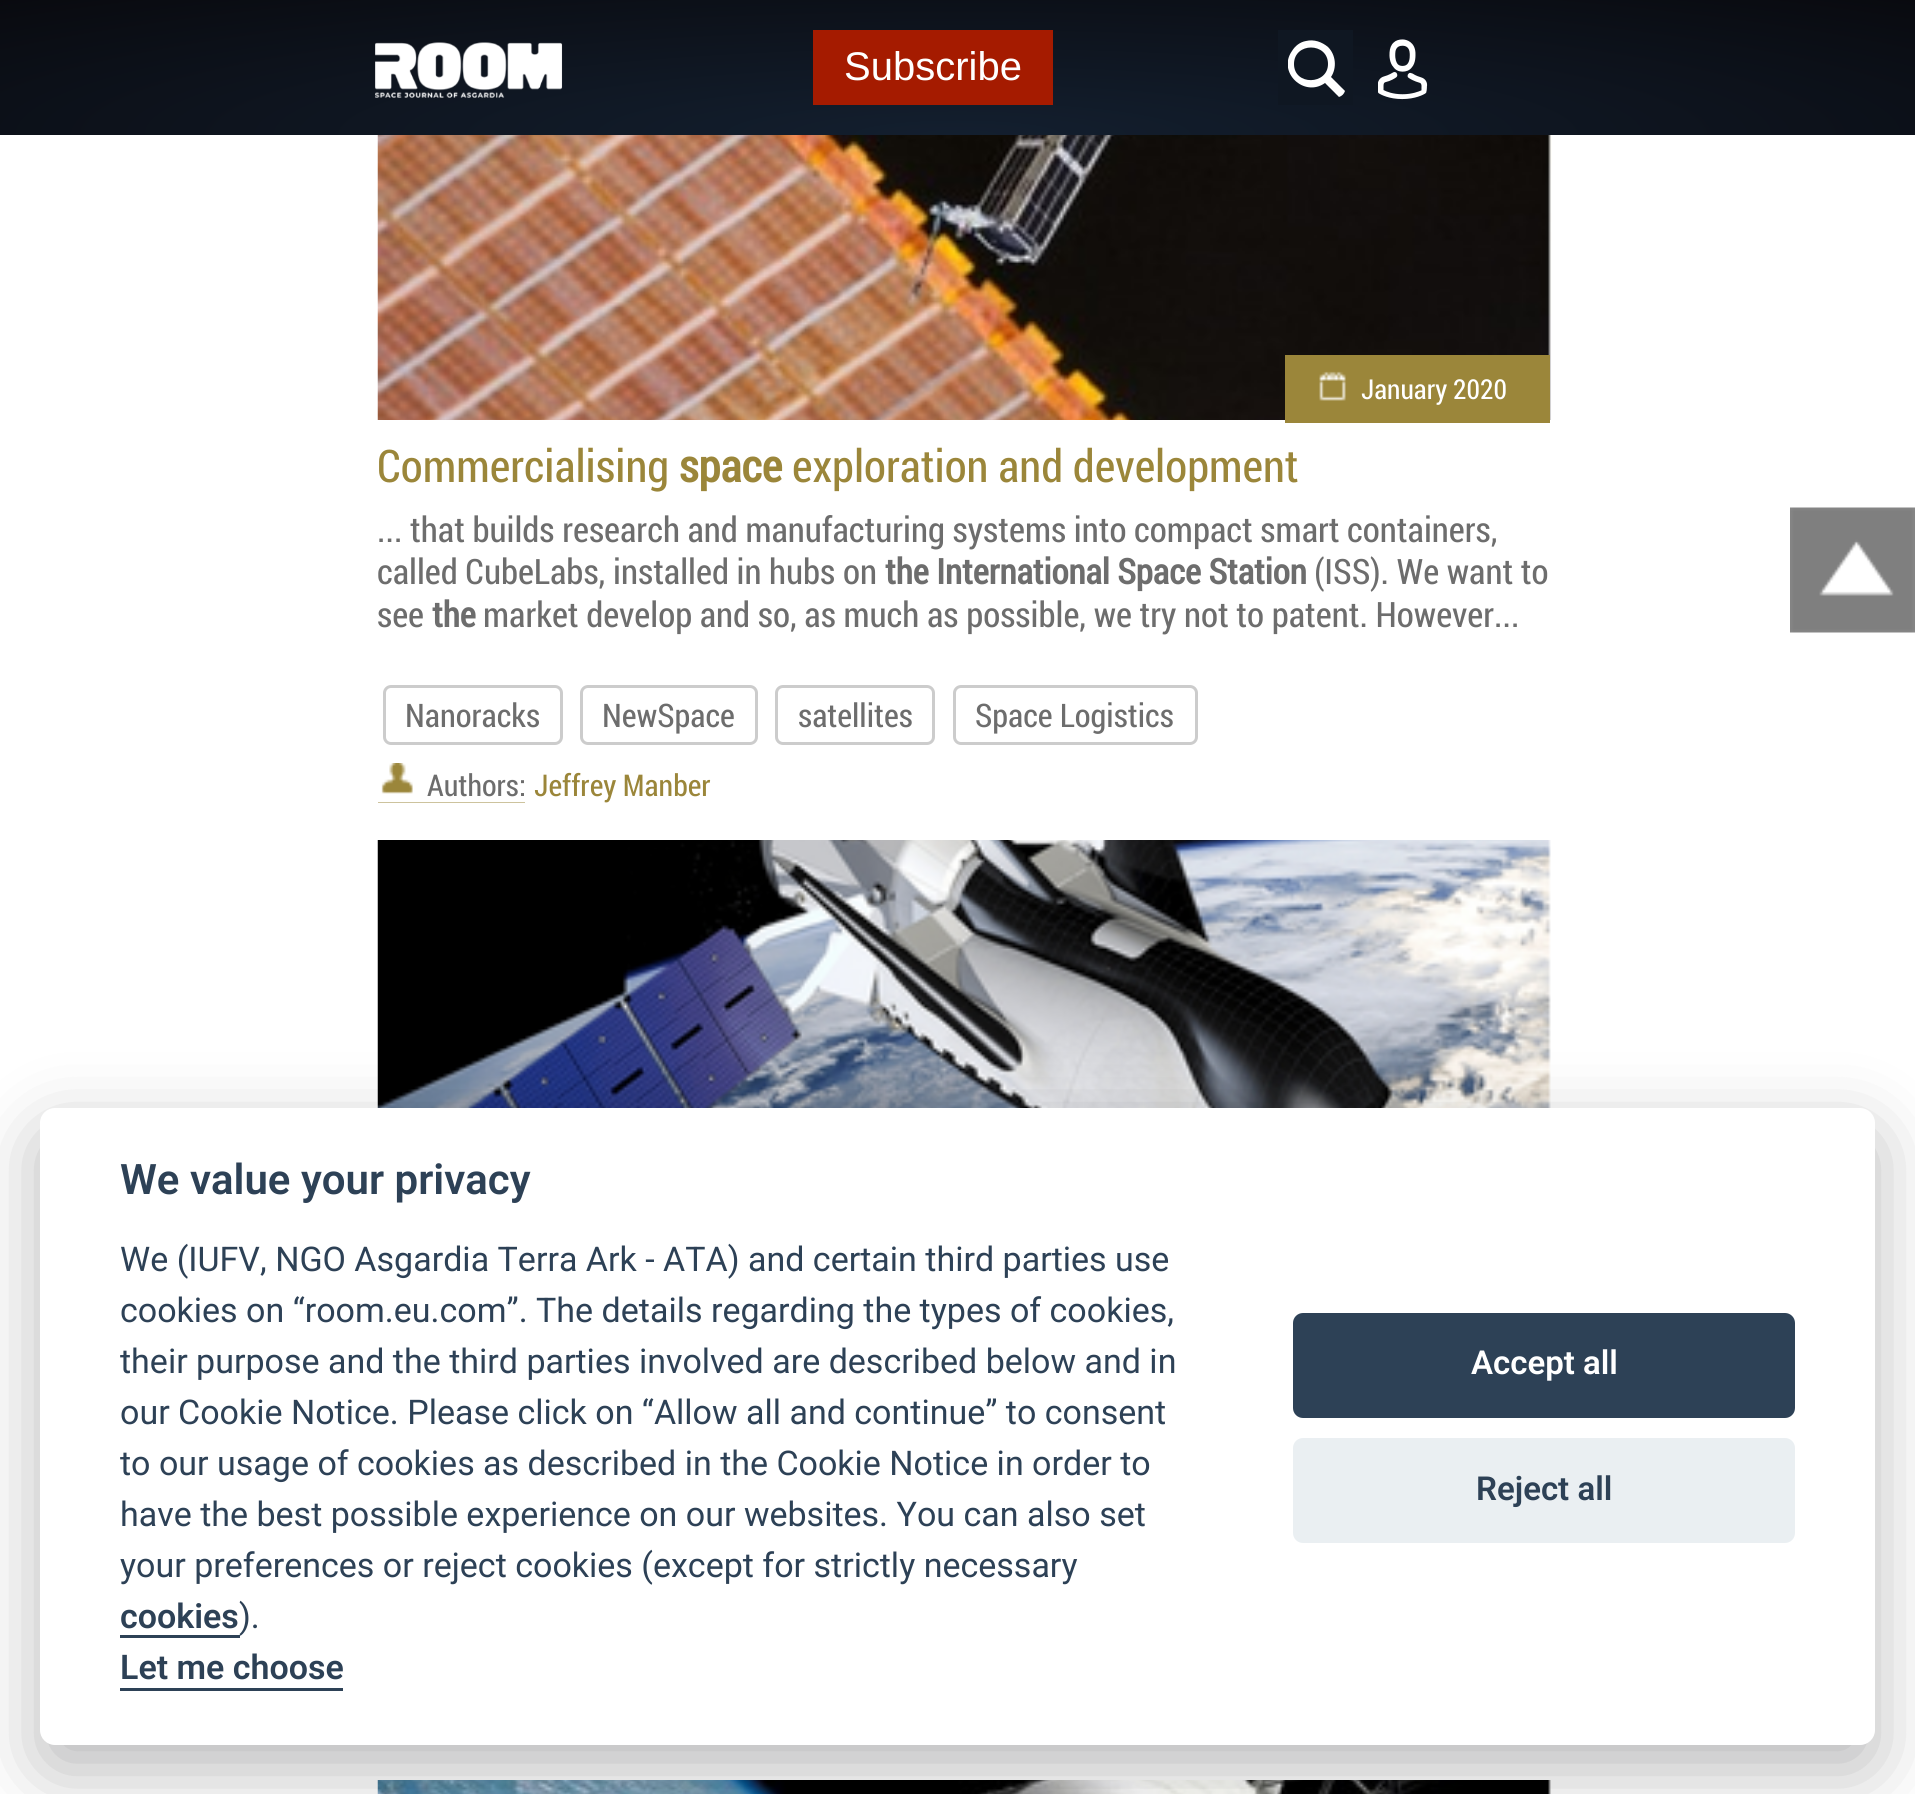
#include <cairo.h>
#include <math.h>
#include <stddef.h>

static cairo_t *ctx;

static void use_color(int r, int g, int b) {
    cairo_set_source_rgb(ctx, r / 255.0, g / 255.0, b / 255.0);
}

static void round_rect(double x, double y, double w, double h, double r) {
    cairo_new_sub_path(ctx);
    cairo_arc(ctx, x + w - r, y + h - r, r, 0, M_PI / 2);
    cairo_arc(ctx, x + r, y + h - r, r, M_PI / 2, M_PI);
    cairo_arc(ctx, x + r, y + r, r, M_PI, 1.5 * M_PI);
    cairo_arc(ctx, x + w - r, y + r, r, 1.5 * M_PI, 2 * M_PI);
    cairo_close_path(ctx);
}

static void shadow(double x, double y, double w, double h, double r, double blur, double alpha) {
    cairo_push_group_with_content(ctx, CAIRO_CONTENT_ALPHA);
    cairo_set_operator(ctx, CAIRO_OPERATOR_SOURCE);
    for (int i = 15; i >= -15 && fmin(w, h) + blur * i / 3 > 0; i -= 2) {
        double e = blur * i / 6;
        cairo_set_source_rgba(ctx, 0, 0, 0, alpha * erfc((i - 1) / 8.5) / 2);
        round_rect(x - e, y - e, w + 2 * e, h + 2 * e, fmax(0, fmin(r + e + blur * .6, fmin(w, h) / 2 + e)));
        cairo_fill(ctx);
    }
    cairo_pattern_t *soft = cairo_pop_group(ctx);
    cairo_mask(ctx, soft);
    cairo_pattern_destroy(soft);
}

static void picture(const char *path, double x, double y, double w, double h) {
    cairo_surface_t *image = cairo_image_surface_create_from_png(path);
    cairo_save(ctx);
    cairo_set_source_surface(ctx, image, x, y);
    cairo_rectangle(ctx, x, y, w, h);
    cairo_fill(ctx);
    cairo_restore(ctx);
    cairo_surface_destroy(image);
}

int main(void) {
    cairo_surface_t *surface = cairo_image_surface_create(CAIRO_FORMAT_RGB24, 1915, 1794);
    ctx = cairo_create(surface);
    cairo_font_options_t *options = cairo_font_options_create();
    cairo_font_options_set_hint_metrics(options, CAIRO_HINT_METRICS_OFF);
    cairo_font_options_set_hint_style(options, CAIRO_HINT_STYLE_NONE);
    cairo_set_font_options(ctx, options);
    cairo_set_miter_limit(ctx, 4);
    cairo_pattern_t *gradient;
    use_color(255, 255, 255);
    cairo_paint(ctx);
    gradient = cairo_pattern_create_radial(0, 0, 0, 0, 0, 1);
    cairo_pattern_set_matrix(gradient, &(cairo_matrix_t){1.0 / 1354, 0, 0, 1.0 / 191, -1.0 * 958 / 1354, -1.0 * 135 / 191});
    cairo_pattern_add_color_stop_rgba(gradient, 0, 0.075, 0.122, 0.184, 1);
    cairo_pattern_add_color_stop_rgba(gradient, 1, 0.035, 0.039, 0.059, 1);
    cairo_set_source(ctx, gradient);
    cairo_pattern_destroy(gradient);
    cairo_rectangle(ctx, 0, 0, 1915, 135);
    cairo_fill(ctx);
    picture("img1.png", 375, 42, 188, 56);
    use_color(165, 27, 0);
    cairo_rectangle(ctx, 813, 30, 240, 75);
    cairo_fill(ctx);
    cairo_select_font_face(ctx, "Liberation Sans", CAIRO_FONT_SLANT_NORMAL, CAIRO_FONT_WEIGHT_NORMAL);
    cairo_set_font_size(ctx, 40);
    use_color(255, 255, 255);
    cairo_move_to(ctx, 844, 80);
    cairo_show_text(ctx, "Subscribe");
    use_color(15, 23, 34);
    cairo_rectangle(ctx, 1278, 30, 75, 75);
    cairo_fill(ctx);
    cairo_save(ctx);
    cairo_rectangle(ctx, 1288, 40, 57, 58);
    cairo_clip(ctx);
    use_color(255, 255, 255);
    cairo_new_path(ctx);
    cairo_move_to(ctx, 1331, 77);
    cairo_curve_to(ctx, 1337, 68, 1336, 55, 1328, 47);
    cairo_curve_to(ctx, 1322, 42, 1314, 39, 1306, 41);
    cairo_curve_to(ctx, 1300, 42, 1295, 46, 1292, 51);
    cairo_curve_to(ctx, 1277, 72, 1304, 98, 1325, 83);
    cairo_line_to(ctx, 1339, 97);
    cairo_curve_to(ctx, 1342, 96, 1344, 94, 1345, 91);
    cairo_close_path(ctx);
    cairo_move_to(ctx, 1294, 64);
    cairo_curve_to(ctx, 1294, 42, 1328, 42, 1328, 64);
    cairo_curve_to(ctx, 1328, 85, 1294, 86, 1294, 64);
    cairo_close_path(ctx);
    cairo_fill(ctx);
    cairo_restore(ctx);
    picture("img2.png", 1378, 39, 50, 61);
    picture("img3.png", 377, 135, 1175, 285);
    use_color(155, 134, 58);
    cairo_rectangle(ctx, 1285, 355, 265, 68);
    cairo_fill(ctx);
    picture("img4.png", 1319, 371, 27, 30);
    cairo_select_font_face(ctx, "Roboto Condensed", CAIRO_FONT_SLANT_NORMAL, CAIRO_FONT_WEIGHT_NORMAL);
    cairo_set_font_size(ctx, 27.5);
    use_color(255, 255, 255);
    cairo_move_to(ctx, 1361, 399);
    cairo_show_text(ctx, "January 2020");
    cairo_set_font_size(ctx, 45);
    use_color(155, 134, 58);
    cairo_move_to(ctx, 377, 482);
    cairo_show_text(ctx, "Commercialising");
    cairo_select_font_face(ctx, "Roboto Condensed", CAIRO_FONT_SLANT_NORMAL, CAIRO_FONT_WEIGHT_BOLD);
    cairo_move_to(ctx, 679, 482);
    cairo_show_text(ctx, "space");
    cairo_select_font_face(ctx, "Roboto Condensed", CAIRO_FONT_SLANT_NORMAL, CAIRO_FONT_WEIGHT_NORMAL);
    cairo_move_to(ctx, 792, 482);
    cairo_show_text(ctx, "exploration and development");
    cairo_set_font_size(ctx, 35);
    use_color(109, 109, 109);
    cairo_move_to(ctx, 377, 542);
    cairo_show_text(ctx, "... that builds research and manufacturing systems into compact smart containers,");
    cairo_move_to(ctx, 377, 584);
    cairo_show_text(ctx, "called CubeLabs, installed in hubs on");
    cairo_select_font_face(ctx, "Roboto Condensed", CAIRO_FONT_SLANT_NORMAL, CAIRO_FONT_WEIGHT_BOLD);
    cairo_move_to(ctx, 885, 584);
    cairo_show_text(ctx, "the International Space Station");
    cairo_select_font_face(ctx, "Roboto Condensed", CAIRO_FONT_SLANT_NORMAL, CAIRO_FONT_WEIGHT_NORMAL);
    cairo_move_to(ctx, 1314, 584);
    cairo_show_text(ctx, "(ISS). We want to");
    cairo_move_to(ctx, 377, 627);
    cairo_show_text(ctx, "see");
    cairo_select_font_face(ctx, "Roboto Condensed", CAIRO_FONT_SLANT_NORMAL, CAIRO_FONT_WEIGHT_BOLD);
    cairo_move_to(ctx, 432, 627);
    cairo_show_text(ctx, "the");
    cairo_select_font_face(ctx, "Roboto Condensed", CAIRO_FONT_SLANT_NORMAL, CAIRO_FONT_WEIGHT_NORMAL);
    cairo_move_to(ctx, 483, 627);
    cairo_show_text(ctx, "market develop and so, as much as possible, we try not to patent. However...");
    round_rect(384.5, 686.5, 177, 57, 6.5);
    use_color(204, 204, 204);
    cairo_set_line_width(ctx, 3);
    cairo_stroke(ctx);
    cairo_set_font_size(ctx, 32.5);
    use_color(109, 109, 109);
    cairo_move_to(ctx, 405, 727);
    cairo_show_text(ctx, "Nanoracks");
    round_rect(581.5, 686.5, 175, 57, 6.5);
    use_color(204, 204, 204);
    cairo_stroke(ctx);
    use_color(109, 109, 109);
    cairo_move_to(ctx, 602, 727);
    cairo_show_text(ctx, "NewSpace");
    round_rect(776.5, 686.5, 157, 57, 6.5);
    use_color(204, 204, 204);
    cairo_stroke(ctx);
    use_color(109, 109, 109);
    cairo_move_to(ctx, 798, 727);
    cairo_show_text(ctx, "satellites");
    round_rect(954.5, 686.5, 242, 57, 6.5);
    use_color(204, 204, 204);
    cairo_stroke(ctx);
    use_color(109, 109, 109);
    cairo_move_to(ctx, 975, 727);
    cairo_show_text(ctx, "Space Logistics");
    use_color(155, 134, 58);
    cairo_rectangle(ctx, 378, 763, 147, 40);
    cairo_fill(ctx);
    picture("img5.png", 378, 763, 147, 40);
    cairo_set_font_size(ctx, 30);
    cairo_move_to(ctx, 534, 796);
    cairo_show_text(ctx, "Jeffrey Manber");
    use_color(109, 109, 109);
    cairo_move_to(ctx, 427, 796);
    cairo_show_text(ctx, "Authors:");
    picture("img6.png", 377, 840, 1174, 268);
    picture("img7.png", 377, 1780, 1174, 14);
    picture("img8.png", 1790, 507, 125, 126);
    use_color(2, 2, 3);
    shadow(40, 1133, 1835, 637, 15, 37.5, 0.28);
    use_color(255, 255, 255);
    round_rect(40, 1108, 1835, 637, 15);
    cairo_fill(ctx);
    cairo_select_font_face(ctx, "Roboto SemiBold", CAIRO_FONT_SLANT_NORMAL, CAIRO_FONT_WEIGHT_NORMAL);
    cairo_set_font_size(ctx, 42);
    use_color(45, 65, 86);
    cairo_move_to(ctx, 120, 1194);
    cairo_show_text(ctx, "We value your privacy");
    cairo_select_font_face(ctx, "Roboto", CAIRO_FONT_SLANT_NORMAL, CAIRO_FONT_WEIGHT_NORMAL);
    cairo_set_font_size(ctx, 34);
    cairo_move_to(ctx, 120, 1271);
    cairo_show_text(ctx, "We (IUFV, NGO Asgardia Terra Ark - ATA) and certain third parties use");
    cairo_move_to(ctx, 120, 1322);
    cairo_show_text(ctx, "cookies on “room.eu.com”. The details regarding the types of cookies,");
    cairo_move_to(ctx, 120, 1373);
    cairo_show_text(ctx, "their purpose and the third parties involved are described below and in");
    cairo_move_to(ctx, 120, 1424);
    cairo_show_text(ctx, "our Cookie Notice. Please click on “Allow all and continue” to consent");
    cairo_move_to(ctx, 120, 1475);
    cairo_show_text(ctx, "to our usage of cookies as described in the Cookie Notice in order to");
    cairo_move_to(ctx, 120, 1526);
    cairo_show_text(ctx, "have the best possible experience on our websites. You can also set");
    cairo_move_to(ctx, 120, 1577);
    cairo_show_text(ctx, "your preferences or reject cookies (except for strictly necessary");
    cairo_select_font_face(ctx, "Roboto SemiBold", CAIRO_FONT_SLANT_NORMAL, CAIRO_FONT_WEIGHT_NORMAL);
    cairo_move_to(ctx, 120, 1628);
    cairo_show_text(ctx, "cookies");
    cairo_rectangle(ctx, 120, 1635, 120, 3);
    cairo_fill(ctx);
    cairo_select_font_face(ctx, "Roboto", CAIRO_FONT_SLANT_NORMAL, CAIRO_FONT_WEIGHT_NORMAL);
    cairo_move_to(ctx, 239, 1628);
    cairo_show_text(ctx, ").");
    cairo_select_font_face(ctx, "Roboto SemiBold", CAIRO_FONT_SLANT_NORMAL, CAIRO_FONT_WEIGHT_NORMAL);
    cairo_move_to(ctx, 120, 1679);
    cairo_show_text(ctx, "Let me choose");
    cairo_rectangle(ctx, 120, 1688, 223, 3);
    cairo_fill(ctx);
    round_rect(1293, 1313, 502, 105, 10);
    cairo_fill(ctx);
    cairo_set_font_size(ctx, 33);
    use_color(255, 255, 255);
    cairo_move_to(ctx, 1471, 1374);
    cairo_show_text(ctx, "Accept all");
    use_color(234, 239, 242);
    round_rect(1293, 1438, 502, 105, 10);
    cairo_fill(ctx);
    use_color(45, 65, 86);
    cairo_move_to(ctx, 1476, 1500);
    cairo_show_text(ctx, "Reject all");
    cairo_surface_write_to_png(surface, "result.png");
    cairo_font_options_destroy(options);
    cairo_destroy(ctx);
    cairo_surface_destroy(surface);
    return 0;
}
